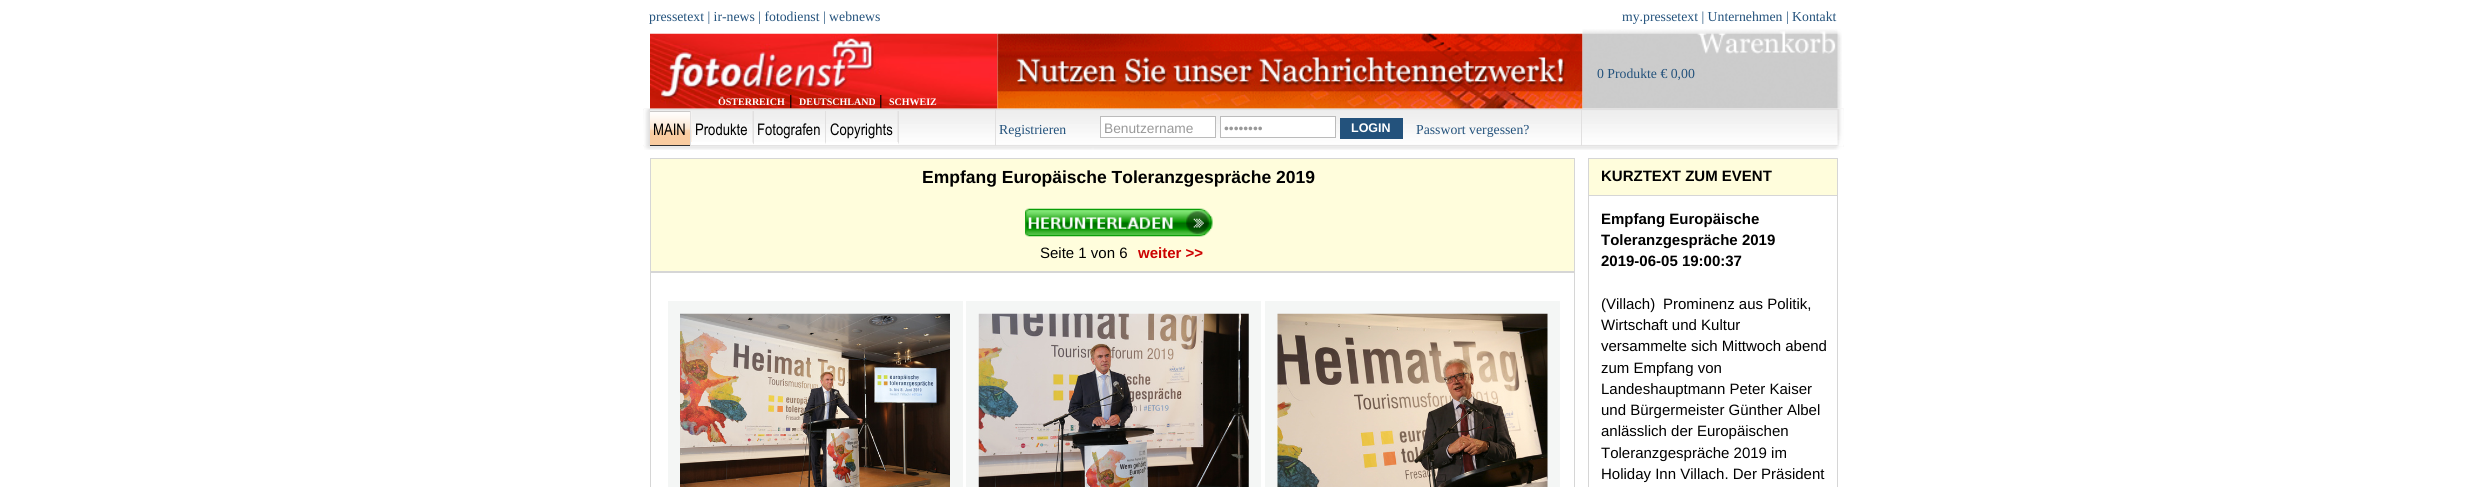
#include <cairo.h>
#include <math.h>
#include <stddef.h>

static cairo_t *ctx;

static void use_color(int r, int g, int b) {
    cairo_set_source_rgb(ctx, r / 255.0, g / 255.0, b / 255.0);
}

static void picture(const char *path, double x, double y, double w, double h) {
    cairo_surface_t *image = cairo_image_surface_create_from_png(path);
    cairo_save(ctx);
    cairo_set_source_surface(ctx, image, x, y);
    cairo_rectangle(ctx, x, y, w, h);
    cairo_fill(ctx);
    cairo_restore(ctx);
    cairo_surface_destroy(image);
}

int main(void) {
    cairo_surface_t *surface = cairo_image_surface_create(CAIRO_FORMAT_RGB24, 2486, 487);
    ctx = cairo_create(surface);
    cairo_font_options_t *options = cairo_font_options_create();
    cairo_font_options_set_hint_metrics(options, CAIRO_HINT_METRICS_OFF);
    cairo_font_options_set_hint_style(options, CAIRO_HINT_STYLE_NONE);
    cairo_set_font_options(ctx, options);
    cairo_set_miter_limit(ctx, 4);
    use_color(255, 255, 255);
    cairo_paint(ctx);
    cairo_select_font_face(ctx, "Liberation Serif", CAIRO_FONT_SLANT_NORMAL, CAIRO_FONT_WEIGHT_NORMAL);
    cairo_set_font_size(ctx, 13.75);
    use_color(35, 82, 124);
    cairo_move_to(ctx, 649, 21);
    cairo_show_text(ctx, "pressetext | ir-news | fotodienst | webnews");
    cairo_move_to(ctx, 1622, 21);
    cairo_show_text(ctx, "my.pressetext | Unternehmen | Kontakt");
    picture("img3.png", 650, 33, 348, 76);
    picture("img1.png", 997, 33, 586, 76);
    picture("img2.png", 1582, 29, 260, 80);
    cairo_move_to(ctx, 1597, 78);
    cairo_show_text(ctx, "0 Produkte € 0,00");
    cairo_select_font_face(ctx, "Liberation Serif", CAIRO_FONT_SLANT_NORMAL, CAIRO_FONT_WEIGHT_BOLD);
    cairo_set_font_size(ctx, 10);
    use_color(255, 255, 255);
    cairo_move_to(ctx, 718, 105);
    cairo_show_text(ctx, "ÖSTERREICH");
    cairo_select_font_face(ctx, "Liberation Sans", CAIRO_FONT_SLANT_NORMAL, CAIRO_FONT_WEIGHT_NORMAL);
    cairo_set_font_size(ctx, 13.75);
    use_color(0, 0, 0);
    cairo_move_to(ctx, 789, 105);
    cairo_show_text(ctx, "|");
    cairo_select_font_face(ctx, "Liberation Serif", CAIRO_FONT_SLANT_NORMAL, CAIRO_FONT_WEIGHT_BOLD);
    cairo_set_font_size(ctx, 10);
    use_color(255, 255, 255);
    cairo_move_to(ctx, 799, 105);
    cairo_show_text(ctx, "DEUTSCHLAND");
    cairo_select_font_face(ctx, "Liberation Sans", CAIRO_FONT_SLANT_NORMAL, CAIRO_FONT_WEIGHT_NORMAL);
    cairo_set_font_size(ctx, 13.75);
    use_color(0, 0, 0);
    cairo_move_to(ctx, 879, 105);
    cairo_show_text(ctx, "|");
    cairo_select_font_face(ctx, "Liberation Serif", CAIRO_FONT_SLANT_NORMAL, CAIRO_FONT_WEIGHT_BOLD);
    cairo_set_font_size(ctx, 10);
    use_color(255, 255, 255);
    cairo_move_to(ctx, 889, 105);
    cairo_show_text(ctx, "SCHWEIZ");
    picture("img4.png", 643, 108, 1201, 39);
    picture("img5.png", 644, 108, 6, 39);
    use_color(49, 49, 49);
    cairo_rectangle(ctx, 650, 111, 40, 35);
    cairo_fill(ctx);
    picture("img6.png", 650, 111, 42, 34);
    use_color(225, 224, 224);
    cairo_rectangle(ctx, 690, 111, 1, 35);
    cairo_fill(ctx);
    cairo_select_font_face(ctx, "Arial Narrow", CAIRO_FONT_SLANT_NORMAL, CAIRO_FONT_WEIGHT_NORMAL);
    cairo_set_font_size(ctx, 16);
    use_color(0, 0, 0);
    cairo_move_to(ctx, 653, 135);
    cairo_show_text(ctx, "MAIN");
    use_color(225, 224, 224);
    cairo_new_path(ctx);
    cairo_move_to(ctx, 754, 111);
    cairo_line_to(ctx, 754, 145);
    cairo_line_to(ctx, 752.5, 142.5);
    cairo_line_to(ctx, 752.5, 111);
    cairo_close_path(ctx);
    cairo_fill(ctx);
    use_color(255, 255, 255);
    cairo_new_path(ctx);
    cairo_move_to(ctx, 754, 145);
    cairo_line_to(ctx, 691, 145);
    cairo_line_to(ctx, 691, 142);
    cairo_line_to(ctx, 752, 142);
    cairo_close_path(ctx);
    cairo_fill(ctx);
    use_color(0, 0, 0);
    cairo_move_to(ctx, 695, 135);
    cairo_show_text(ctx, "Produkte");
    use_color(225, 224, 224);
    cairo_new_path(ctx);
    cairo_move_to(ctx, 826, 111);
    cairo_line_to(ctx, 826, 145);
    cairo_line_to(ctx, 825, 142.5);
    cairo_line_to(ctx, 825, 111);
    cairo_close_path(ctx);
    cairo_fill(ctx);
    use_color(255, 255, 255);
    cairo_new_path(ctx);
    cairo_move_to(ctx, 826, 145);
    cairo_line_to(ctx, 754, 145);
    cairo_line_to(ctx, 754, 142);
    cairo_line_to(ctx, 825, 142);
    cairo_close_path(ctx);
    cairo_fill(ctx);
    use_color(0, 0, 0);
    cairo_move_to(ctx, 757, 135);
    cairo_show_text(ctx, "Fotografen");
    use_color(225, 224, 224);
    cairo_new_path(ctx);
    cairo_move_to(ctx, 899, 111);
    cairo_line_to(ctx, 899, 145);
    cairo_line_to(ctx, 897.5, 142.5);
    cairo_line_to(ctx, 897.5, 111);
    cairo_close_path(ctx);
    cairo_fill(ctx);
    use_color(255, 255, 255);
    cairo_new_path(ctx);
    cairo_move_to(ctx, 899, 145);
    cairo_line_to(ctx, 826, 145);
    cairo_line_to(ctx, 826, 142);
    cairo_line_to(ctx, 898, 142);
    cairo_close_path(ctx);
    cairo_fill(ctx);
    use_color(0, 0, 0);
    cairo_move_to(ctx, 830, 135);
    cairo_show_text(ctx, "Copyrights");
    use_color(225, 224, 224);
    cairo_rectangle(ctx, 1581, 109, 1, 37);
    cairo_fill(ctx);
    cairo_rectangle(ctx, 995, 109, 1, 37);
    cairo_fill(ctx);
    cairo_select_font_face(ctx, "Liberation Serif", CAIRO_FONT_SLANT_NORMAL, CAIRO_FONT_WEIGHT_NORMAL);
    cairo_set_font_size(ctx, 13.75);
    use_color(35, 82, 124);
    cairo_move_to(ctx, 999, 134);
    cairo_show_text(ctx, "Registrieren");
    use_color(255, 255, 255);
    cairo_rectangle(ctx, 1100.5, 116.5, 115, 21);
    cairo_fill_preserve(ctx);
    use_color(187, 187, 187);
    cairo_set_line_width(ctx, 1);
    cairo_stroke(ctx);
    cairo_select_font_face(ctx, "Liberation Sans", CAIRO_FONT_SLANT_NORMAL, CAIRO_FONT_WEIGHT_NORMAL);
    use_color(153, 153, 153);
    cairo_move_to(ctx, 1104, 133);
    cairo_show_text(ctx, "Benutzername");
    use_color(255, 255, 255);
    cairo_rectangle(ctx, 1220.5, 116.5, 115, 21);
    cairo_fill_preserve(ctx);
    use_color(187, 187, 187);
    cairo_stroke(ctx);
    use_color(153, 153, 153);
    cairo_move_to(ctx, 1224, 133);
    cairo_show_text(ctx, "••••••••");
    use_color(35, 82, 124);
    cairo_rectangle(ctx, 1340, 118, 63, 21);
    cairo_fill(ctx);
    cairo_select_font_face(ctx, "Liberation Sans", CAIRO_FONT_SLANT_NORMAL, CAIRO_FONT_WEIGHT_BOLD);
    cairo_set_font_size(ctx, 12.5);
    use_color(255, 255, 255);
    cairo_move_to(ctx, 1351, 132);
    cairo_show_text(ctx, "LOGIN");
    cairo_select_font_face(ctx, "Liberation Serif", CAIRO_FONT_SLANT_NORMAL, CAIRO_FONT_WEIGHT_NORMAL);
    cairo_set_font_size(ctx, 13.75);
    use_color(35, 82, 124);
    cairo_move_to(ctx, 1416, 134);
    cairo_show_text(ctx, "Passwort vergessen?");
    picture("img7.png", 1837, 109, 7, 37);
    picture("img8.png", 644, 146, 1199, 4);
    use_color(255, 253, 220);
    cairo_rectangle(ctx, 651, 159, 923, 112);
    cairo_fill(ctx);
    cairo_rectangle(ctx, 650.5, 158.5, 924, 114);
    use_color(214, 214, 214);
    cairo_stroke(ctx);
    cairo_select_font_face(ctx, "Liberation Sans", CAIRO_FONT_SLANT_NORMAL, CAIRO_FONT_WEIGHT_BOLD);
    cairo_set_font_size(ctx, 17.5);
    use_color(0, 0, 0);
    cairo_move_to(ctx, 922, 183);
    cairo_show_text(ctx, "Empfang Europäische Toleranzgespräche 2019");
    picture("img9.png", 1025, 208, 188, 29);
    cairo_select_font_face(ctx, "Liberation Sans", CAIRO_FONT_SLANT_NORMAL, CAIRO_FONT_WEIGHT_NORMAL);
    cairo_set_font_size(ctx, 15);
    cairo_move_to(ctx, 1040, 258);
    cairo_show_text(ctx, "Seite 1 von 6");
    cairo_select_font_face(ctx, "Liberation Sans", CAIRO_FONT_SLANT_NORMAL, CAIRO_FONT_WEIGHT_BOLD);
    use_color(204, 0, 0);
    cairo_move_to(ctx, 1138, 258);
    cairo_show_text(ctx, "weiter >>");
    use_color(214, 214, 214);
    cairo_rectangle(ctx, 650, 271, 925, 1);
    cairo_fill(ctx);
    cairo_rectangle(ctx, 1574, 271, 1, 216);
    cairo_fill(ctx);
    cairo_rectangle(ctx, 650, 271, 1, 216);
    cairo_fill(ctx);
    use_color(244, 246, 245);
    cairo_rectangle(ctx, 668, 301, 295, 186);
    cairo_fill(ctx);
    picture("img10.png", 680, 313, 270, 174);
    cairo_rectangle(ctx, 966, 301, 295, 186);
    cairo_fill(ctx);
    picture("img11.png", 978, 313, 271, 174);
    cairo_rectangle(ctx, 1265, 301, 295, 186);
    cairo_fill(ctx);
    picture("img12.png", 1277, 313, 271, 174);
    use_color(255, 253, 220);
    cairo_rectangle(ctx, 1588.5, 158.5, 249, 37);
    cairo_fill_preserve(ctx);
    use_color(214, 214, 214);
    cairo_stroke(ctx);
    use_color(0, 0, 0);
    cairo_move_to(ctx, 1601, 181);
    cairo_show_text(ctx, "KURZTEXT ZUM EVENT");
    cairo_rectangle(ctx, 1588.5, 195.5, 249, 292);
    use_color(214, 214, 214);
    cairo_stroke(ctx);
    use_color(0, 0, 0);
    cairo_move_to(ctx, 1601, 224);
    cairo_show_text(ctx, "Empfang Europäische");
    cairo_move_to(ctx, 1601, 245);
    cairo_show_text(ctx, "Toleranzgespräche 2019");
    cairo_move_to(ctx, 1601, 266);
    cairo_show_text(ctx, "2019-06-05 19:00:37");
    cairo_select_font_face(ctx, "Liberation Sans", CAIRO_FONT_SLANT_NORMAL, CAIRO_FONT_WEIGHT_NORMAL);
    cairo_move_to(ctx, 1601, 309);
    cairo_show_text(ctx, "(Villach)");
    cairo_move_to(ctx, 1663, 309);
    cairo_show_text(ctx, "Prominenz aus Politik,");
    cairo_move_to(ctx, 1601, 330);
    cairo_show_text(ctx, "Wirtschaft und Kultur");
    cairo_move_to(ctx, 1601, 351);
    cairo_show_text(ctx, "versammelte sich Mittwoch abend");
    cairo_move_to(ctx, 1601, 373);
    cairo_show_text(ctx, "zum Empfang von");
    cairo_move_to(ctx, 1601, 394);
    cairo_show_text(ctx, "Landeshauptmann Peter Kaiser");
    cairo_move_to(ctx, 1601, 415);
    cairo_show_text(ctx, "und Bürgermeister Günther Albel");
    cairo_move_to(ctx, 1601, 436);
    cairo_show_text(ctx, "anlässlich der Europäischen");
    cairo_move_to(ctx, 1601, 458);
    cairo_show_text(ctx, "Toleranzgespräche 2019 im");
    cairo_move_to(ctx, 1601, 479);
    cairo_show_text(ctx, "Holiday Inn Villach. Der Präsident");
    cairo_surface_write_to_png(surface, "result.png");
    cairo_font_options_destroy(options);
    cairo_destroy(ctx);
    cairo_surface_destroy(surface);
    return 0;
}
